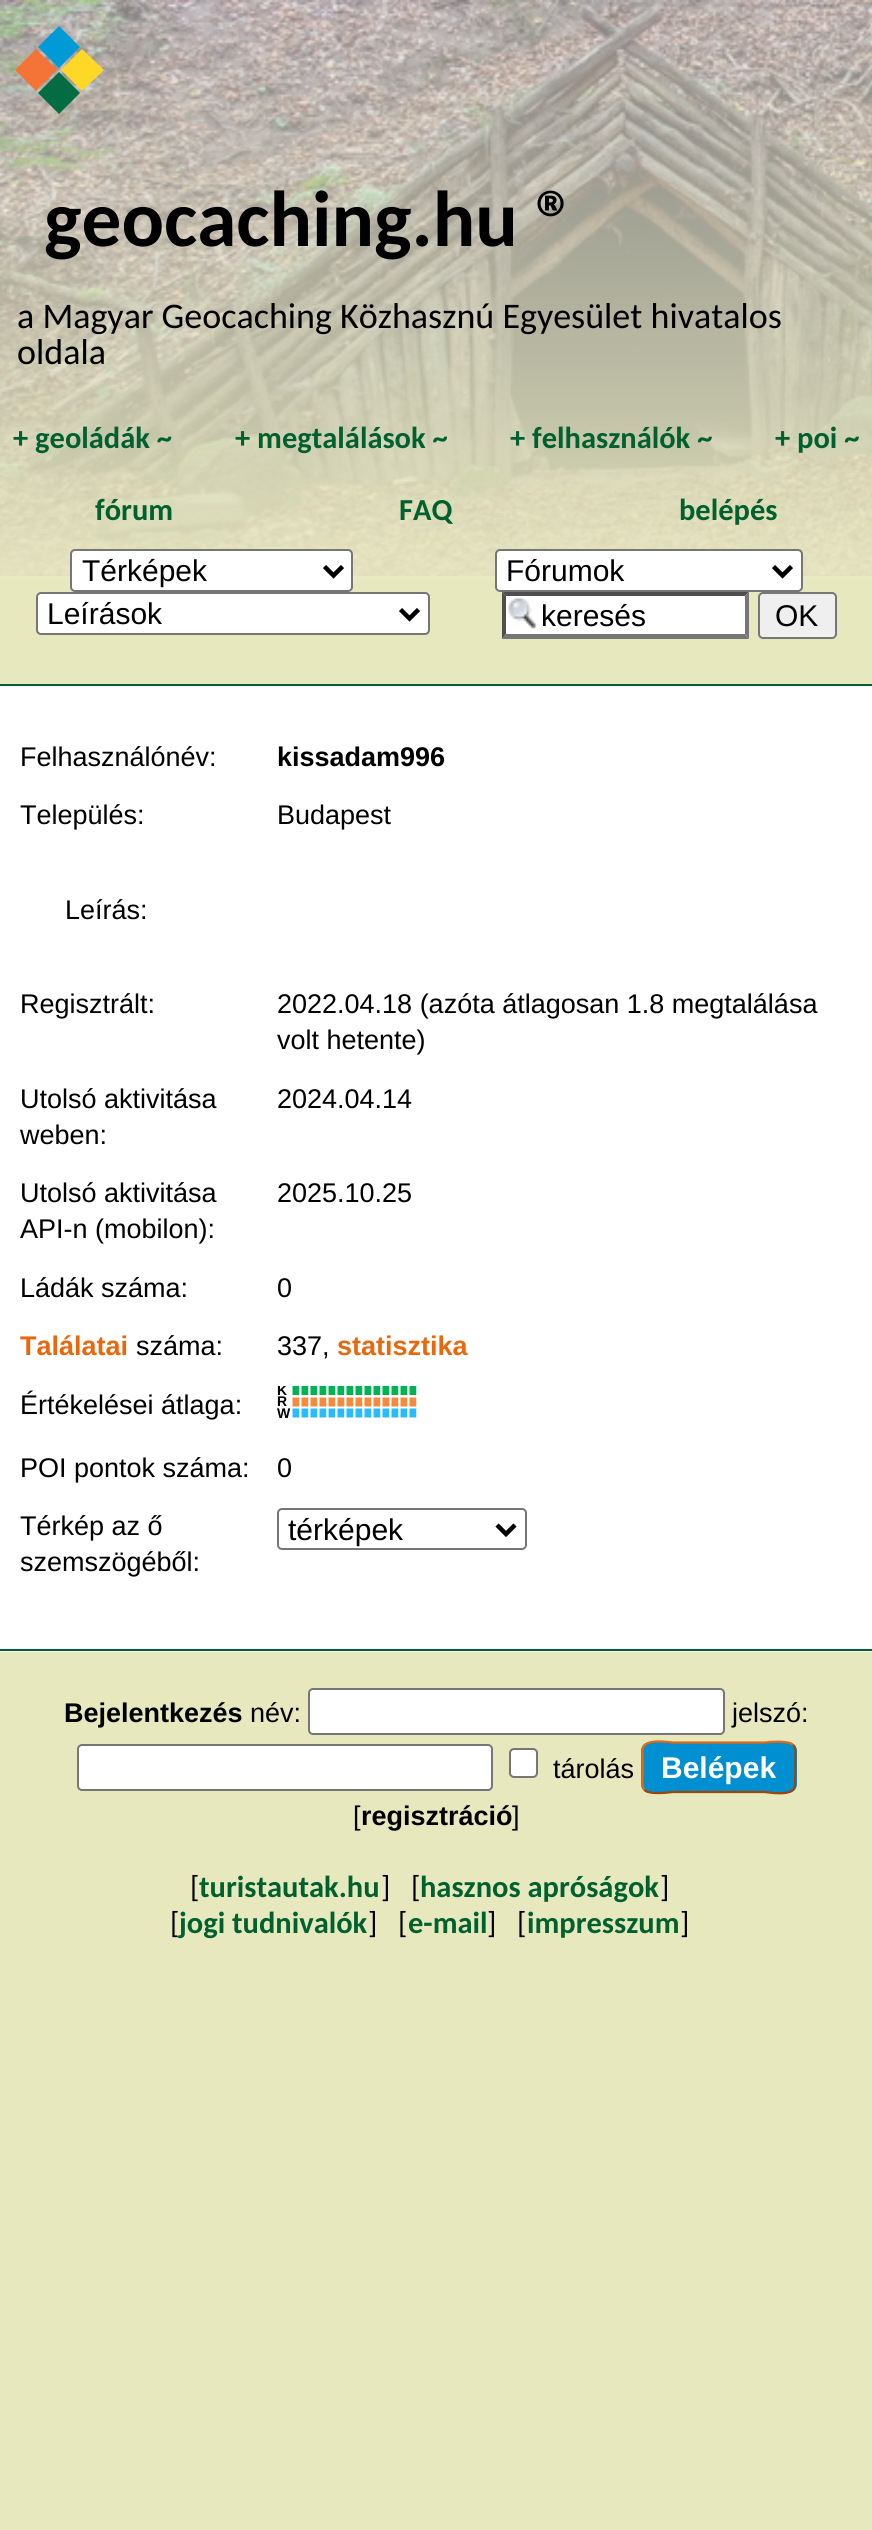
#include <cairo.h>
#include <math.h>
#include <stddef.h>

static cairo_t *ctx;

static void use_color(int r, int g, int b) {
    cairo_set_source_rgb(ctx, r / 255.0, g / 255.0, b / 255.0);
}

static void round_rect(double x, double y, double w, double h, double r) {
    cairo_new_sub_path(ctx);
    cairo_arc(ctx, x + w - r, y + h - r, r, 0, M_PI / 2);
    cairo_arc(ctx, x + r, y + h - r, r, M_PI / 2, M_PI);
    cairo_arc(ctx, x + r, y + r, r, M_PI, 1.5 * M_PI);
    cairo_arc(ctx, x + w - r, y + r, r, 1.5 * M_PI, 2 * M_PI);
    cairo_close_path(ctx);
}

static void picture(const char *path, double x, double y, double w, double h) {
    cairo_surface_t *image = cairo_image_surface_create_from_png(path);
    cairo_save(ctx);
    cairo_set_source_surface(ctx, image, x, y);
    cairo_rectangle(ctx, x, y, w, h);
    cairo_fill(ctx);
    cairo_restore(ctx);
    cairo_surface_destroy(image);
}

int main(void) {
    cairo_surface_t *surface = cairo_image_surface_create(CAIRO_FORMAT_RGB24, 872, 2530);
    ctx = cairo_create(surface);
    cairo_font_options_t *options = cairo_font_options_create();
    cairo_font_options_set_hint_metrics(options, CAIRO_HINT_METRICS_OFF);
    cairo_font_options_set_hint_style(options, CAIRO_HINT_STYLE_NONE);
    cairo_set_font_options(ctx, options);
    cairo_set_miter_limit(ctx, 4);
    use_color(232, 232, 191);
    cairo_paint(ctx);
    picture("img1.png", 0, 0, 872, 579);
    use_color(243, 116, 54);
    cairo_new_path(ctx);
    cairo_move_to(ctx, 57, 70);
    cairo_line_to(ctx, 36, 91);
    cairo_line_to(ctx, 15, 70);
    cairo_line_to(ctx, 36, 49);
    cairo_close_path(ctx);
    cairo_fill(ctx);
    use_color(0, 155, 215);
    cairo_new_path(ctx);
    cairo_move_to(ctx, 80, 47);
    cairo_line_to(ctx, 59, 68);
    cairo_line_to(ctx, 38, 47);
    cairo_line_to(ctx, 59, 26);
    cairo_close_path(ctx);
    cairo_fill(ctx);
    use_color(3, 108, 67);
    cairo_new_path(ctx);
    cairo_move_to(ctx, 80, 93);
    cairo_line_to(ctx, 59, 114);
    cairo_line_to(ctx, 38, 93);
    cairo_line_to(ctx, 59, 72);
    cairo_close_path(ctx);
    cairo_fill(ctx);
    use_color(255, 215, 38);
    cairo_new_path(ctx);
    cairo_move_to(ctx, 104, 70);
    cairo_line_to(ctx, 82, 91);
    cairo_line_to(ctx, 61, 70);
    cairo_line_to(ctx, 82, 49);
    cairo_close_path(ctx);
    cairo_fill(ctx);
    cairo_select_font_face(ctx, "Carlito", CAIRO_FONT_SLANT_NORMAL, CAIRO_FONT_WEIGHT_BOLD);
    cairo_set_font_size(ctx, 79.25);
    use_color(0, 0, 0);
    cairo_move_to(ctx, 44, 246);
    cairo_show_text(ctx, "geocaching.hu ®");
    cairo_select_font_face(ctx, "Carlito", CAIRO_FONT_SLANT_NORMAL, CAIRO_FONT_WEIGHT_NORMAL);
    cairo_set_font_size(ctx, 36);
    cairo_move_to(ctx, 17, 328);
    cairo_show_text(ctx, "a Magyar Geocaching Közhasznú Egyesület hivatalos");
    cairo_move_to(ctx, 17, 364);
    cairo_show_text(ctx, "oldala");
    cairo_select_font_face(ctx, "Carlito", CAIRO_FONT_SLANT_NORMAL, CAIRO_FONT_WEIGHT_BOLD);
    cairo_set_font_size(ctx, 30.5);
    use_color(0, 97, 46);
    cairo_move_to(ctx, 13, 448);
    cairo_show_text(ctx, "+ geoládák ~");
    cairo_move_to(ctx, 235, 448);
    cairo_show_text(ctx, "+ megtalálások ~");
    cairo_move_to(ctx, 510, 448);
    cairo_show_text(ctx, "+ felhasználók ~");
    cairo_move_to(ctx, 775, 448);
    cairo_show_text(ctx, "+ poi ~");
    cairo_move_to(ctx, 95, 520);
    cairo_show_text(ctx, "fórum");
    cairo_move_to(ctx, 399, 520);
    cairo_show_text(ctx, "FAQ");
    cairo_move_to(ctx, 679, 520);
    cairo_show_text(ctx, "belépés");
    use_color(255, 255, 255);
    round_rect(71, 550, 281, 41, 4);
    cairo_fill_preserve(ctx);
    use_color(118, 118, 118);
    cairo_stroke(ctx);
    cairo_new_path(ctx);
    cairo_move_to(ctx, 324.5, 566.5);
    cairo_line_to(ctx, 333.5, 575.5);
    cairo_line_to(ctx, 342.5, 566.5);
    use_color(0, 0, 0);
    cairo_set_line_width(ctx, 4.5);
    cairo_stroke(ctx);
    cairo_select_font_face(ctx, "Liberation Sans", CAIRO_FONT_SLANT_NORMAL, CAIRO_FONT_WEIGHT_NORMAL);
    cairo_set_font_size(ctx, 30);
    cairo_move_to(ctx, 82, 581);
    cairo_show_text(ctx, "Térképek");
    use_color(255, 255, 255);
    round_rect(496, 550, 306, 41, 4);
    cairo_fill_preserve(ctx);
    use_color(118, 118, 118);
    cairo_set_line_width(ctx, 2);
    cairo_stroke(ctx);
    cairo_new_path(ctx);
    cairo_move_to(ctx, 773.5, 566.5);
    cairo_line_to(ctx, 782.5, 575.5);
    cairo_line_to(ctx, 791.5, 566.5);
    use_color(0, 0, 0);
    cairo_set_line_width(ctx, 4.5);
    cairo_stroke(ctx);
    cairo_move_to(ctx, 506, 581);
    cairo_show_text(ctx, "Fórumok");
    use_color(255, 255, 255);
    round_rect(37, 593, 392, 41, 4);
    cairo_fill_preserve(ctx);
    use_color(118, 118, 118);
    cairo_set_line_width(ctx, 2);
    cairo_stroke(ctx);
    cairo_new_path(ctx);
    cairo_move_to(ctx, 400.5, 609.5);
    cairo_line_to(ctx, 409.5, 618.5);
    cairo_line_to(ctx, 418.5, 609.5);
    use_color(0, 0, 0);
    cairo_set_line_width(ctx, 4.5);
    cairo_stroke(ctx);
    cairo_move_to(ctx, 47, 624);
    cairo_show_text(ctx, "Leírások");
    use_color(255, 255, 255);
    cairo_rectangle(ctx, 502, 592, 247, 47);
    cairo_fill(ctx);
    picture("img2.png", 508, 598, 29, 31);
    use_color(79, 79, 79);
    cairo_new_path(ctx);
    cairo_move_to(ctx, 502, 592);
    cairo_line_to(ctx, 749, 592);
    cairo_line_to(ctx, 745, 596);
    cairo_line_to(ctx, 506, 596);
    cairo_close_path(ctx);
    cairo_fill(ctx);
    use_color(118, 118, 118);
    cairo_new_path(ctx);
    cairo_move_to(ctx, 749, 592);
    cairo_line_to(ctx, 749, 639);
    cairo_line_to(ctx, 745, 634);
    cairo_line_to(ctx, 745, 596);
    cairo_close_path(ctx);
    cairo_fill(ctx);
    cairo_new_path(ctx);
    cairo_move_to(ctx, 749, 639);
    cairo_line_to(ctx, 502, 639);
    cairo_line_to(ctx, 506, 634);
    cairo_line_to(ctx, 745, 634);
    cairo_close_path(ctx);
    cairo_fill(ctx);
    use_color(79, 79, 79);
    cairo_new_path(ctx);
    cairo_move_to(ctx, 502, 639);
    cairo_line_to(ctx, 502, 592);
    cairo_line_to(ctx, 506, 596);
    cairo_line_to(ctx, 506, 634);
    cairo_close_path(ctx);
    cairo_fill(ctx);
    use_color(0, 0, 0);
    cairo_move_to(ctx, 541, 626);
    cairo_show_text(ctx, "keresés");
    use_color(239, 239, 239);
    round_rect(759, 593, 77, 45, 4);
    cairo_fill_preserve(ctx);
    use_color(118, 118, 118);
    cairo_set_line_width(ctx, 2);
    cairo_stroke(ctx);
    use_color(0, 0, 0);
    cairo_move_to(ctx, 775, 626);
    cairo_show_text(ctx, "OK");
    use_color(255, 255, 255);
    cairo_rectangle(ctx, 0, 686, 872, 966);
    cairo_fill(ctx);
    use_color(0, 97, 46);
    cairo_rectangle(ctx, 0, 684, 872, 2);
    cairo_fill(ctx);
    cairo_rectangle(ctx, 0, 1649, 872, 2);
    cairo_fill(ctx);
    cairo_set_font_size(ctx, 27);
    use_color(0, 0, 0);
    cairo_move_to(ctx, 20, 766);
    cairo_show_text(ctx, "Felhasználónév:");
    cairo_select_font_face(ctx, "Liberation Sans", CAIRO_FONT_SLANT_NORMAL, CAIRO_FONT_WEIGHT_BOLD);
    cairo_move_to(ctx, 277, 766);
    cairo_show_text(ctx, "kissadam996");
    cairo_select_font_face(ctx, "Liberation Sans", CAIRO_FONT_SLANT_NORMAL, CAIRO_FONT_WEIGHT_NORMAL);
    cairo_move_to(ctx, 20, 824);
    cairo_show_text(ctx, "Település:");
    cairo_move_to(ctx, 277, 824);
    cairo_show_text(ctx, "Budapest");
    cairo_move_to(ctx, 65, 919);
    cairo_show_text(ctx, "Leírás:");
    cairo_move_to(ctx, 20, 1013);
    cairo_show_text(ctx, "Regisztrált:");
    cairo_move_to(ctx, 277, 1013);
    cairo_show_text(ctx, "2022.04.18 (azóta átlagosan 1.8 megtalálása");
    cairo_move_to(ctx, 277, 1049);
    cairo_show_text(ctx, "volt hetente)");
    cairo_move_to(ctx, 20, 1108);
    cairo_show_text(ctx, "Utolsó aktivitása");
    cairo_move_to(ctx, 20, 1144);
    cairo_show_text(ctx, "weben:");
    cairo_move_to(ctx, 277, 1108);
    cairo_show_text(ctx, "2024.04.14");
    cairo_move_to(ctx, 20, 1202);
    cairo_show_text(ctx, "Utolsó aktivitása");
    cairo_move_to(ctx, 20, 1238);
    cairo_show_text(ctx, "API-n (mobilon):");
    cairo_move_to(ctx, 277, 1202);
    cairo_show_text(ctx, "2025.10.25");
    cairo_move_to(ctx, 20, 1297);
    cairo_show_text(ctx, "Ládák száma:");
    cairo_move_to(ctx, 277, 1297);
    cairo_show_text(ctx, "0");
    cairo_select_font_face(ctx, "Liberation Sans", CAIRO_FONT_SLANT_NORMAL, CAIRO_FONT_WEIGHT_BOLD);
    use_color(234, 103, 12);
    cairo_move_to(ctx, 20, 1355);
    cairo_show_text(ctx, "Találatai");
    cairo_select_font_face(ctx, "Liberation Sans", CAIRO_FONT_SLANT_NORMAL, CAIRO_FONT_WEIGHT_NORMAL);
    use_color(0, 0, 0);
    cairo_move_to(ctx, 136, 1355);
    cairo_show_text(ctx, "száma:");
    cairo_move_to(ctx, 277, 1355);
    cairo_show_text(ctx, "337,");
    cairo_select_font_face(ctx, "Liberation Sans", CAIRO_FONT_SLANT_NORMAL, CAIRO_FONT_WEIGHT_BOLD);
    use_color(234, 103, 12);
    cairo_move_to(ctx, 337, 1355);
    cairo_show_text(ctx, "statisztika");
    cairo_select_font_face(ctx, "Liberation Sans", CAIRO_FONT_SLANT_NORMAL, CAIRO_FONT_WEIGHT_NORMAL);
    use_color(0, 0, 0);
    cairo_move_to(ctx, 20, 1414);
    cairo_show_text(ctx, "Értékelései átlaga:");
    cairo_save(ctx);
    cairo_rectangle(ctx, 277, 1386, 157, 32);
    cairo_clip(ctx);
    cairo_select_font_face(ctx, "Liberation Sans", CAIRO_FONT_SLANT_NORMAL, CAIRO_FONT_WEIGHT_BOLD);
    cairo_set_font_size(ctx, 14);
    cairo_move_to(ctx, 277, 1395);
    cairo_show_text(ctx, "K");
    cairo_restore(ctx);
    cairo_new_path(ctx);
    cairo_move_to(ctx, 292.5, 1390.5);
    cairo_line_to(ctx, 418.5, 1390.5);
    use_color(0, 179, 83);
    cairo_set_line_width(ctx, 9);
    cairo_set_dash(ctx, (double[]){6.75, 2.25}, 2, 0);
    cairo_stroke(ctx);
    cairo_select_font_face(ctx, "Liberation Sans", CAIRO_FONT_SLANT_NORMAL, CAIRO_FONT_WEIGHT_BOLD);
    cairo_set_font_size(ctx, 14);
    use_color(0, 0, 0);
    cairo_move_to(ctx, 277, 1406);
    cairo_show_text(ctx, "R");
    cairo_new_path(ctx);
    cairo_move_to(ctx, 292.5, 1402);
    cairo_line_to(ctx, 418.5, 1402);
    use_color(245, 138, 61);
    cairo_stroke(ctx);
    use_color(0, 0, 0);
    cairo_move_to(ctx, 277, 1418);
    cairo_show_text(ctx, "W");
    cairo_new_path(ctx);
    cairo_move_to(ctx, 292.5, 1413);
    cairo_line_to(ctx, 418.5, 1413);
    use_color(40, 187, 255);
    cairo_stroke(ctx);
    cairo_select_font_face(ctx, "Liberation Sans", CAIRO_FONT_SLANT_NORMAL, CAIRO_FONT_WEIGHT_NORMAL);
    cairo_set_font_size(ctx, 27);
    use_color(0, 0, 0);
    cairo_move_to(ctx, 20, 1477);
    cairo_show_text(ctx, "POI pontok száma:");
    cairo_move_to(ctx, 277, 1477);
    cairo_show_text(ctx, "0");
    cairo_move_to(ctx, 20, 1535);
    cairo_show_text(ctx, "Térkép az ő");
    cairo_move_to(ctx, 20, 1571);
    cairo_show_text(ctx, "szemszögéből:");
    round_rect(278, 1509, 248, 40, 4);
    use_color(118, 118, 118);
    cairo_set_line_width(ctx, 2);
    cairo_set_dash(ctx, NULL, 0, 0);
    cairo_stroke(ctx);
    cairo_new_path(ctx);
    cairo_move_to(ctx, 497, 1525);
    cairo_line_to(ctx, 506, 1534);
    cairo_line_to(ctx, 515, 1525);
    use_color(0, 0, 0);
    cairo_set_line_width(ctx, 4.5);
    cairo_stroke(ctx);
    cairo_set_font_size(ctx, 30);
    cairo_move_to(ctx, 288, 1540);
    cairo_show_text(ctx, "térképek");
    cairo_select_font_face(ctx, "Liberation Sans", CAIRO_FONT_SLANT_NORMAL, CAIRO_FONT_WEIGHT_BOLD);
    cairo_set_font_size(ctx, 27);
    cairo_move_to(ctx, 64, 1722);
    cairo_show_text(ctx, "Bejelentkezés");
    cairo_select_font_face(ctx, "Liberation Sans", CAIRO_FONT_SLANT_NORMAL, CAIRO_FONT_WEIGHT_NORMAL);
    cairo_move_to(ctx, 250, 1722);
    cairo_show_text(ctx, "név:");
    use_color(255, 255, 255);
    round_rect(309, 1689, 415, 45, 4);
    cairo_fill_preserve(ctx);
    use_color(118, 118, 118);
    cairo_set_line_width(ctx, 2);
    cairo_stroke(ctx);
    use_color(0, 0, 0);
    cairo_move_to(ctx, 732, 1722);
    cairo_show_text(ctx, "jelszó:");
    use_color(255, 255, 255);
    round_rect(78, 1745, 414, 45, 4);
    cairo_fill_preserve(ctx);
    use_color(118, 118, 118);
    cairo_stroke(ctx);
    use_color(255, 255, 255);
    round_rect(510, 1749, 27, 28, 4);
    cairo_fill_preserve(ctx);
    use_color(118, 118, 118);
    cairo_stroke(ctx);
    use_color(0, 0, 0);
    cairo_move_to(ctx, 553, 1778);
    cairo_show_text(ctx, "tárolás");
    use_color(0, 143, 209);
    round_rect(641, 1742, 156, 51, 9);
    cairo_fill(ctx);
    cairo_new_path(ctx);
    cairo_move_to(ctx, 793, 1745);
    cairo_curve_to(ctx, 796, 1748, 795.5, 1752, 795.5, 1756);
    cairo_line_to(ctx, 795, 1786);
    cairo_curve_to(ctx, 793, 1797.5, 767.5, 1792, 764.5, 1792);
    cairo_line_to(ctx, 673, 1792);
    cairo_curve_to(ctx, 671.5, 1792, 650, 1795.5, 644.5, 1790);
    use_color(156, 69, 8);
    cairo_set_line_width(ctx, 2.2);
    cairo_stroke(ctx);
    cairo_new_path(ctx);
    cairo_move_to(ctx, 644.5, 1790);
    cairo_curve_to(ctx, 641.5, 1787, 642.5, 1782.5, 642.5, 1778.5);
    cairo_line_to(ctx, 642.5, 1749);
    cairo_curve_to(ctx, 645, 1737.5, 670, 1742.5, 673, 1742.5);
    cairo_line_to(ctx, 764.5, 1742.5);
    cairo_curve_to(ctx, 766, 1742.5, 787.5, 1739.5, 793, 1745);
    use_color(234, 103, 12);
    cairo_stroke(ctx);
    cairo_select_font_face(ctx, "Liberation Sans", CAIRO_FONT_SLANT_NORMAL, CAIRO_FONT_WEIGHT_BOLD);
    cairo_set_font_size(ctx, 30);
    use_color(255, 255, 255);
    cairo_move_to(ctx, 661, 1778);
    cairo_show_text(ctx, "Belépek");
    cairo_select_font_face(ctx, "Liberation Sans", CAIRO_FONT_SLANT_NORMAL, CAIRO_FONT_WEIGHT_NORMAL);
    cairo_set_font_size(ctx, 27);
    use_color(0, 0, 0);
    cairo_move_to(ctx, 353, 1825);
    cairo_show_text(ctx, "[");
    cairo_select_font_face(ctx, "Liberation Sans", CAIRO_FONT_SLANT_NORMAL, CAIRO_FONT_WEIGHT_BOLD);
    cairo_move_to(ctx, 361, 1825);
    cairo_show_text(ctx, "regisztráció");
    cairo_select_font_face(ctx, "Liberation Sans", CAIRO_FONT_SLANT_NORMAL, CAIRO_FONT_WEIGHT_NORMAL);
    cairo_move_to(ctx, 512, 1825);
    cairo_show_text(ctx, "]");
    cairo_select_font_face(ctx, "Carlito", CAIRO_FONT_SLANT_NORMAL, CAIRO_FONT_WEIGHT_NORMAL);
    cairo_set_font_size(ctx, 30.5);
    cairo_move_to(ctx, 190, 1897);
    cairo_show_text(ctx, "[");
    cairo_select_font_face(ctx, "Carlito", CAIRO_FONT_SLANT_NORMAL, CAIRO_FONT_WEIGHT_BOLD);
    use_color(0, 97, 46);
    cairo_move_to(ctx, 199, 1897);
    cairo_show_text(ctx, "turistautak.hu");
    cairo_select_font_face(ctx, "Carlito", CAIRO_FONT_SLANT_NORMAL, CAIRO_FONT_WEIGHT_NORMAL);
    use_color(0, 0, 0);
    cairo_move_to(ctx, 381, 1897);
    cairo_show_text(ctx, "]   [");
    cairo_select_font_face(ctx, "Carlito", CAIRO_FONT_SLANT_NORMAL, CAIRO_FONT_WEIGHT_BOLD);
    use_color(0, 97, 46);
    cairo_move_to(ctx, 420, 1897);
    cairo_show_text(ctx, "hasznos apróságok");
    cairo_select_font_face(ctx, "Carlito", CAIRO_FONT_SLANT_NORMAL, CAIRO_FONT_WEIGHT_NORMAL);
    use_color(0, 0, 0);
    cairo_move_to(ctx, 660, 1897);
    cairo_show_text(ctx, "]");
    cairo_move_to(ctx, 170, 1933);
    cairo_show_text(ctx, "[");
    cairo_select_font_face(ctx, "Carlito", CAIRO_FONT_SLANT_NORMAL, CAIRO_FONT_WEIGHT_BOLD);
    use_color(0, 97, 46);
    cairo_move_to(ctx, 179, 1933);
    cairo_show_text(ctx, "jogi tudnivalók");
    cairo_select_font_face(ctx, "Carlito", CAIRO_FONT_SLANT_NORMAL, CAIRO_FONT_WEIGHT_NORMAL);
    use_color(0, 0, 0);
    cairo_move_to(ctx, 368, 1933);
    cairo_show_text(ctx, "]   [");
    cairo_select_font_face(ctx, "Carlito", CAIRO_FONT_SLANT_NORMAL, CAIRO_FONT_WEIGHT_BOLD);
    use_color(0, 97, 46);
    cairo_move_to(ctx, 408, 1933);
    cairo_show_text(ctx, "e-mail");
    cairo_select_font_face(ctx, "Carlito", CAIRO_FONT_SLANT_NORMAL, CAIRO_FONT_WEIGHT_NORMAL);
    use_color(0, 0, 0);
    cairo_move_to(ctx, 487, 1933);
    cairo_show_text(ctx, "]   [");
    cairo_select_font_face(ctx, "Carlito", CAIRO_FONT_SLANT_NORMAL, CAIRO_FONT_WEIGHT_BOLD);
    use_color(0, 97, 46);
    cairo_move_to(ctx, 527, 1933);
    cairo_show_text(ctx, "impresszum");
    cairo_select_font_face(ctx, "Carlito", CAIRO_FONT_SLANT_NORMAL, CAIRO_FONT_WEIGHT_NORMAL);
    use_color(0, 0, 0);
    cairo_move_to(ctx, 680, 1933);
    cairo_show_text(ctx, "]");
    cairo_surface_write_to_png(surface, "result.png");
    cairo_font_options_destroy(options);
    cairo_destroy(ctx);
    cairo_surface_destroy(surface);
    return 0;
}
